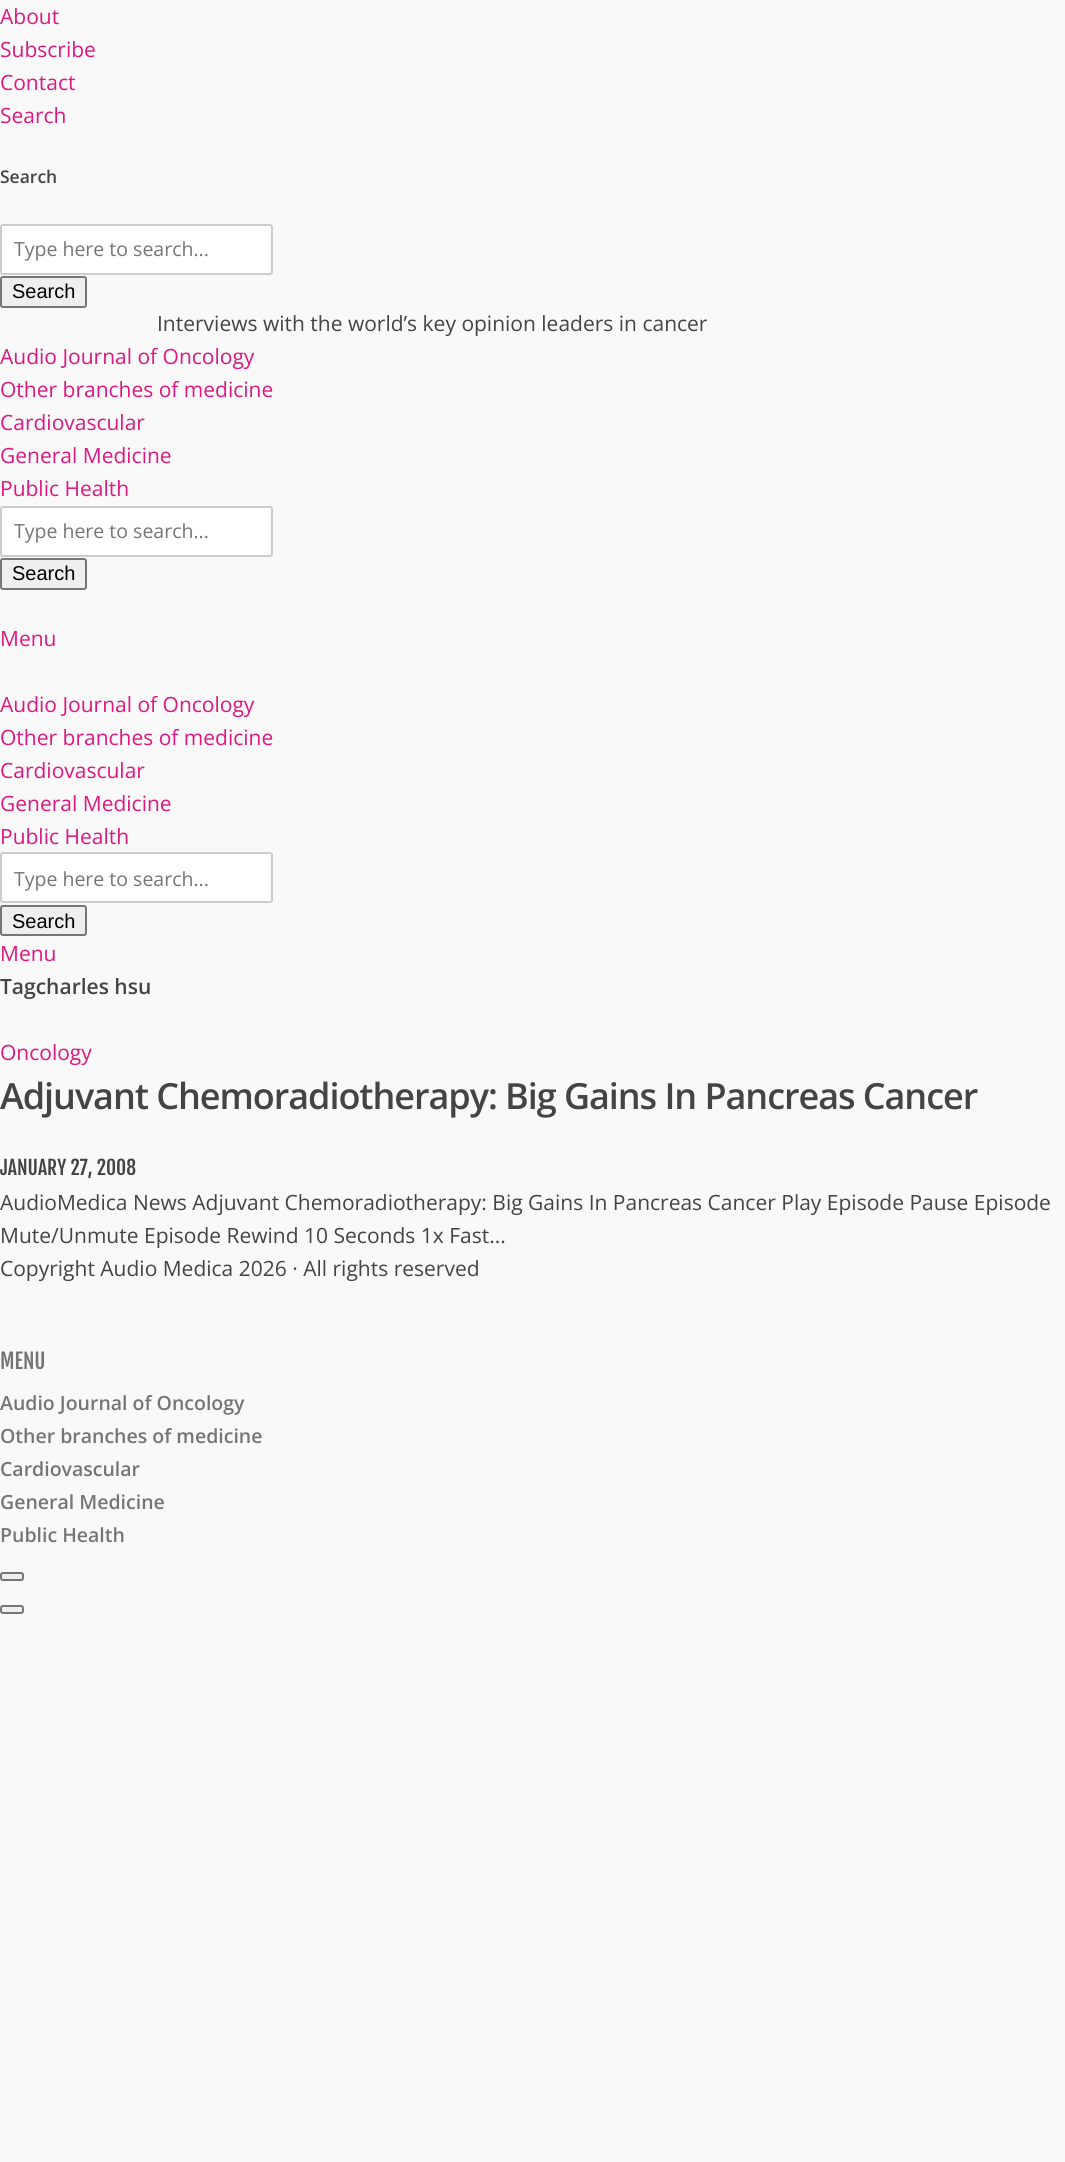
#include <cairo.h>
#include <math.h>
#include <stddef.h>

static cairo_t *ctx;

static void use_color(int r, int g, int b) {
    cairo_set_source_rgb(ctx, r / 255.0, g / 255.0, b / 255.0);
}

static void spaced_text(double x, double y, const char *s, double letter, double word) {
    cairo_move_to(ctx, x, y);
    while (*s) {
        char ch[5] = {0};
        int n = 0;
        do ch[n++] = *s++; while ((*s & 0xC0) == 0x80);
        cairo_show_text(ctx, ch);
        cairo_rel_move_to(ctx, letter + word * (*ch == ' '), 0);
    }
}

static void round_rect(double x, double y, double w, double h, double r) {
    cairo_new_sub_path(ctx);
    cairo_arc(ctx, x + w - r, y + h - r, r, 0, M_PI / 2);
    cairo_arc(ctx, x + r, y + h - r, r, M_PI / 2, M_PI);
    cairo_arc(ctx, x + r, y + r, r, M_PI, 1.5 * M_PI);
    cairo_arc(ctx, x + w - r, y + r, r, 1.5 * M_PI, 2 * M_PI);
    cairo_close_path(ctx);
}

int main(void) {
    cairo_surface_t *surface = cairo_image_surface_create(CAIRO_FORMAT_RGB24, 1065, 2162);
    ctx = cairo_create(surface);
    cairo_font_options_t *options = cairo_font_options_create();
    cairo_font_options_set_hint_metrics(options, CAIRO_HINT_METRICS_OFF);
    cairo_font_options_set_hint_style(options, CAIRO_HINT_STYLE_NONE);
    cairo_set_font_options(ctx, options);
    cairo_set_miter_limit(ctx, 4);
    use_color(249, 249, 249);
    cairo_paint(ctx);
    cairo_select_font_face(ctx, "Open Sans", CAIRO_FONT_SLANT_NORMAL, CAIRO_FONT_WEIGHT_NORMAL);
    cairo_set_font_size(ctx, 21);
    use_color(223, 23, 129);
    cairo_move_to(ctx, 0, 24);
    cairo_show_text(ctx, "About");
    cairo_move_to(ctx, 0, 57);
    cairo_show_text(ctx, "Subscribe");
    cairo_move_to(ctx, 0, 90);
    cairo_show_text(ctx, "Contact");
    cairo_move_to(ctx, 0, 123);
    cairo_show_text(ctx, "Search");
    cairo_select_font_face(ctx, "Open Sans SemiBold", CAIRO_FONT_SLANT_NORMAL, CAIRO_FONT_WEIGHT_NORMAL);
    cairo_set_font_size(ctx, 17.5);
    use_color(68, 68, 68);
    cairo_move_to(ctx, 0, 183);
    cairo_show_text(ctx, "Search");
    use_color(255, 255, 255);
    round_rect(1, 225, 271, 49, 2);
    cairo_fill_preserve(ctx);
    use_color(204, 204, 204);
    cairo_stroke(ctx);
    cairo_select_font_face(ctx, "Open Sans", CAIRO_FONT_SLANT_NORMAL, CAIRO_FONT_WEIGHT_NORMAL);
    cairo_set_font_size(ctx, 19.5);
    use_color(117, 117, 117);
    cairo_move_to(ctx, 14, 256);
    cairo_show_text(ctx, "Type here to search...");
    use_color(239, 239, 239);
    round_rect(1, 277, 85, 30, 2);
    cairo_fill_preserve(ctx);
    use_color(118, 118, 118);
    cairo_stroke(ctx);
    cairo_select_font_face(ctx, "Liberation Sans", CAIRO_FONT_SLANT_NORMAL, CAIRO_FONT_WEIGHT_NORMAL);
    cairo_set_font_size(ctx, 20);
    use_color(0, 0, 0);
    cairo_move_to(ctx, 12, 298);
    cairo_show_text(ctx, "Search");
    cairo_select_font_face(ctx, "Open Sans", CAIRO_FONT_SLANT_NORMAL, CAIRO_FONT_WEIGHT_NORMAL);
    cairo_set_font_size(ctx, 21);
    use_color(68, 68, 68);
    cairo_move_to(ctx, 157, 331);
    cairo_show_text(ctx, "Interviews with the world’s key opinion leaders in cancer");
    use_color(223, 23, 129);
    cairo_move_to(ctx, 0, 364);
    cairo_show_text(ctx, "Audio Journal of Oncology");
    cairo_move_to(ctx, 0, 397);
    cairo_show_text(ctx, "Other branches of medicine");
    cairo_move_to(ctx, 0, 430);
    cairo_show_text(ctx, "Cardiovascular");
    cairo_move_to(ctx, 0, 463);
    cairo_show_text(ctx, "General Medicine");
    cairo_move_to(ctx, 0, 496);
    cairo_show_text(ctx, "Public Health");
    use_color(255, 255, 255);
    round_rect(1, 507, 271, 49, 2);
    cairo_fill_preserve(ctx);
    use_color(204, 204, 204);
    cairo_stroke(ctx);
    cairo_set_font_size(ctx, 19.5);
    use_color(117, 117, 117);
    cairo_move_to(ctx, 14, 538);
    cairo_show_text(ctx, "Type here to search...");
    use_color(239, 239, 239);
    round_rect(1, 559, 85, 30, 2);
    cairo_fill_preserve(ctx);
    use_color(118, 118, 118);
    cairo_stroke(ctx);
    cairo_select_font_face(ctx, "Liberation Sans", CAIRO_FONT_SLANT_NORMAL, CAIRO_FONT_WEIGHT_NORMAL);
    cairo_set_font_size(ctx, 20);
    use_color(0, 0, 0);
    cairo_move_to(ctx, 12, 580);
    cairo_show_text(ctx, "Search");
    cairo_select_font_face(ctx, "Open Sans", CAIRO_FONT_SLANT_NORMAL, CAIRO_FONT_WEIGHT_NORMAL);
    cairo_set_font_size(ctx, 21);
    use_color(223, 23, 129);
    cairo_move_to(ctx, 0, 646);
    cairo_show_text(ctx, "Menu");
    cairo_move_to(ctx, 0, 712);
    cairo_show_text(ctx, "Audio Journal of Oncology");
    cairo_move_to(ctx, 0, 745);
    cairo_show_text(ctx, "Other branches of medicine");
    cairo_move_to(ctx, 0, 778);
    cairo_show_text(ctx, "Cardiovascular");
    cairo_move_to(ctx, 0, 811);
    cairo_show_text(ctx, "General Medicine");
    cairo_move_to(ctx, 0, 844);
    cairo_show_text(ctx, "Public Health");
    use_color(255, 255, 255);
    round_rect(1, 853, 271, 49, 2);
    cairo_fill_preserve(ctx);
    use_color(204, 204, 204);
    cairo_stroke(ctx);
    cairo_set_font_size(ctx, 19.5);
    use_color(117, 117, 117);
    cairo_move_to(ctx, 14, 886);
    cairo_show_text(ctx, "Type here to search...");
    use_color(239, 239, 239);
    round_rect(1, 906, 85, 29, 2);
    cairo_fill_preserve(ctx);
    use_color(118, 118, 118);
    cairo_stroke(ctx);
    cairo_select_font_face(ctx, "Liberation Sans", CAIRO_FONT_SLANT_NORMAL, CAIRO_FONT_WEIGHT_NORMAL);
    cairo_set_font_size(ctx, 20);
    use_color(0, 0, 0);
    cairo_move_to(ctx, 12, 928);
    cairo_show_text(ctx, "Search");
    cairo_select_font_face(ctx, "Open Sans", CAIRO_FONT_SLANT_NORMAL, CAIRO_FONT_WEIGHT_NORMAL);
    cairo_set_font_size(ctx, 21);
    use_color(223, 23, 129);
    cairo_move_to(ctx, 0, 961);
    cairo_show_text(ctx, "Menu");
    cairo_select_font_face(ctx, "Open Sans SemiBold", CAIRO_FONT_SLANT_NORMAL, CAIRO_FONT_WEIGHT_NORMAL);
    use_color(68, 68, 68);
    cairo_move_to(ctx, 0, 994);
    cairo_show_text(ctx, "Tagcharles hsu");
    cairo_select_font_face(ctx, "Open Sans", CAIRO_FONT_SLANT_NORMAL, CAIRO_FONT_WEIGHT_NORMAL);
    use_color(223, 23, 129);
    cairo_move_to(ctx, 0, 1060);
    cairo_show_text(ctx, "Oncology");
    cairo_select_font_face(ctx, "Open Sans SemiBold", CAIRO_FONT_SLANT_NORMAL, CAIRO_FONT_WEIGHT_NORMAL);
    cairo_set_font_size(ctx, 36);
    use_color(68, 68, 68);
    spaced_text(0, 1109, "Adjuvant Chemoradiotherapy: Big Gains In Pancreas Cancer", -1.05, 0);
    cairo_select_font_face(ctx, "Fjalla One", CAIRO_FONT_SLANT_NORMAL, CAIRO_FONT_WEIGHT_NORMAL);
    cairo_set_font_size(ctx, 19.5);
    cairo_move_to(ctx, 0, 1175);
    cairo_show_text(ctx, "JANUARY 27, 2008");
    cairo_select_font_face(ctx, "Open Sans", CAIRO_FONT_SLANT_NORMAL, CAIRO_FONT_WEIGHT_NORMAL);
    cairo_set_font_size(ctx, 21);
    cairo_move_to(ctx, 0, 1210);
    cairo_show_text(ctx, "AudioMedica News Adjuvant Chemoradiotherapy: Big Gains In Pancreas Cancer Play Episode Pause Episode");
    cairo_move_to(ctx, 0, 1243);
    cairo_show_text(ctx, "Mute/Unmute Episode Rewind 10 Seconds 1x Fast...");
    cairo_move_to(ctx, 0, 1276);
    cairo_show_text(ctx, "Copyright Audio Medica 2026 · All rights reserved");
    cairo_select_font_face(ctx, "Fjalla One", CAIRO_FONT_SLANT_NORMAL, CAIRO_FONT_WEIGHT_NORMAL);
    use_color(117, 117, 117);
    cairo_move_to(ctx, 0, 1369);
    cairo_show_text(ctx, "MENU");
    cairo_select_font_face(ctx, "Open Sans SemiBold", CAIRO_FONT_SLANT_NORMAL, CAIRO_FONT_WEIGHT_NORMAL);
    cairo_set_font_size(ctx, 19.5);
    cairo_move_to(ctx, 0, 1410);
    cairo_show_text(ctx, "Audio Journal of Oncology");
    cairo_move_to(ctx, 0, 1443);
    cairo_show_text(ctx, "Other branches of medicine");
    cairo_move_to(ctx, 0, 1476);
    cairo_show_text(ctx, "Cardiovascular");
    cairo_move_to(ctx, 0, 1509);
    cairo_show_text(ctx, "General Medicine");
    cairo_move_to(ctx, 0, 1542);
    cairo_show_text(ctx, "Public Health");
    use_color(239, 239, 239);
    round_rect(1, 1573, 22, 7, 2);
    cairo_fill_preserve(ctx);
    use_color(118, 118, 118);
    cairo_stroke(ctx);
    use_color(239, 239, 239);
    round_rect(1, 1606, 22, 7, 2);
    cairo_fill_preserve(ctx);
    use_color(118, 118, 118);
    cairo_stroke(ctx);
    cairo_surface_write_to_png(surface, "result.png");
    cairo_font_options_destroy(options);
    cairo_destroy(ctx);
    cairo_surface_destroy(surface);
    return 0;
}
